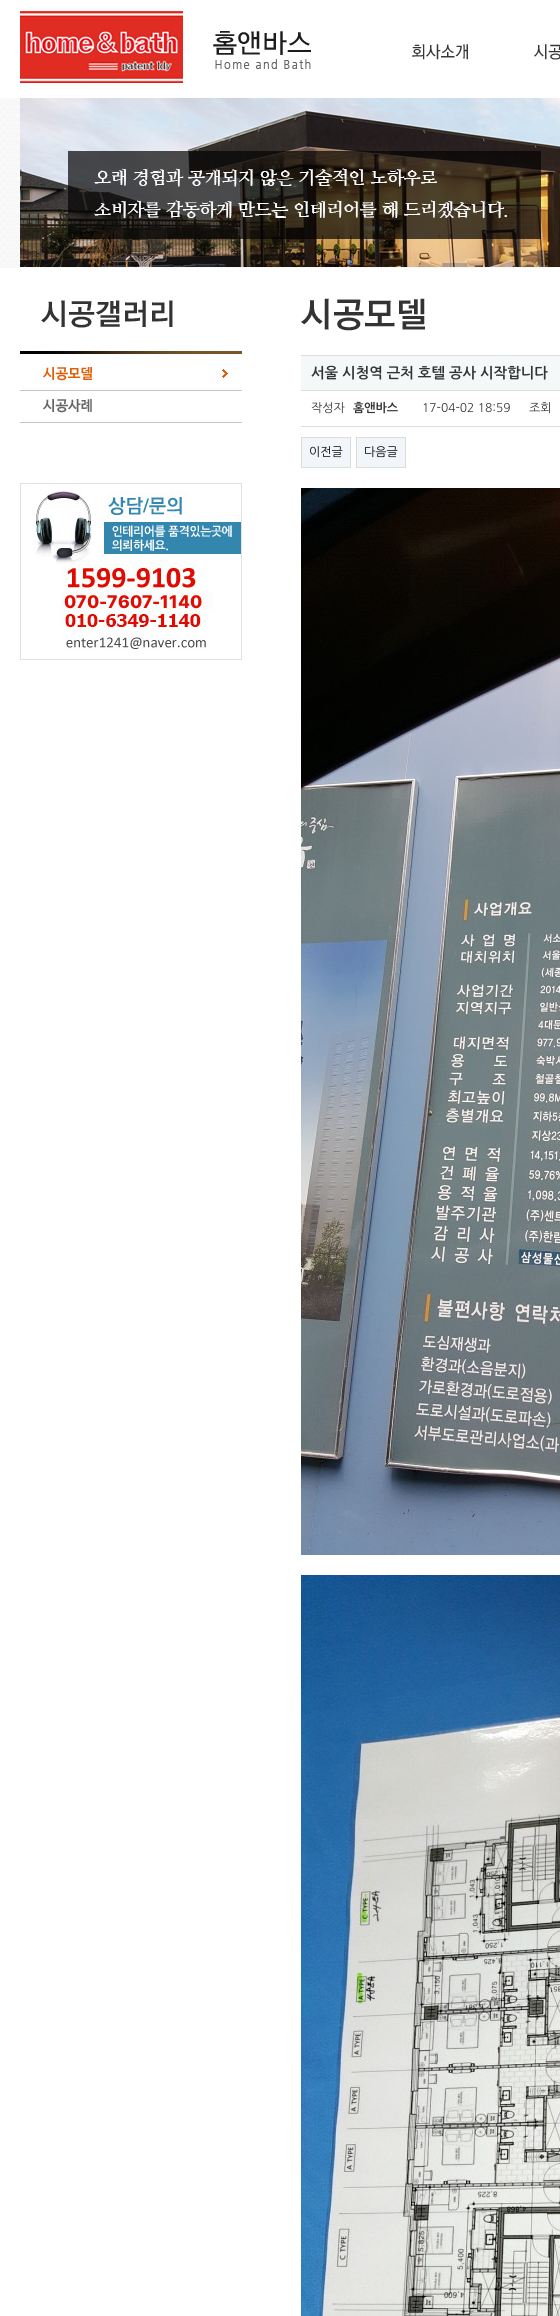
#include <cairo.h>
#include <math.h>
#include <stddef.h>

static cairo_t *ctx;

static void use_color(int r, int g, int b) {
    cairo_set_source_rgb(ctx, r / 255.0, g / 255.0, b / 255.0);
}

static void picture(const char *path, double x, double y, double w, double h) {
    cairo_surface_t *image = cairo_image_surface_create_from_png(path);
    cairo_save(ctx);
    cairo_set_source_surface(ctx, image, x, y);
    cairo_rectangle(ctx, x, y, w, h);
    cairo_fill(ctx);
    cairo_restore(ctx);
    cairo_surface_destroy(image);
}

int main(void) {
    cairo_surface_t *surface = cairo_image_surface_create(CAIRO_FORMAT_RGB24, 560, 2316);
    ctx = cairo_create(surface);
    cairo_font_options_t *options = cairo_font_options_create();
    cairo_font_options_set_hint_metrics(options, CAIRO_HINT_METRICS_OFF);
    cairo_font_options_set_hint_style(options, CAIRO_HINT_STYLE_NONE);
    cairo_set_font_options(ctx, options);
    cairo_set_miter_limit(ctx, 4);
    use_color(255, 255, 255);
    cairo_paint(ctx);
    picture("img1.png", 20, 8, 291, 81);
    picture("img2.png", 412, 44, 56, 16);
    picture("img3.png", 534, 44, 26, 16);
    picture("img4.png", 0, 98, 560, 170);
    picture("img5.png", 20, 98, 540, 169);
    picture("img6.png", 20, 300, 222, 54);
    picture("img7.png", 20, 367, 222, 24);
    picture("img8.png", 20, 399, 222, 24);
    picture("img9.png", 20, 483, 222, 177);
    picture("img10.png", 301, 298, 124, 33);
    use_color(245, 248, 249);
    cairo_rectangle(ctx, 301, 356, 259, 34);
    cairo_fill(ctx);
    use_color(221, 221, 221);
    cairo_rectangle(ctx, 301, 355, 259, 1);
    cairo_fill(ctx);
    cairo_rectangle(ctx, 301, 390, 259, 1);
    cairo_fill(ctx);
    cairo_select_font_face(ctx, "NanumGothic", CAIRO_FONT_SLANT_NORMAL, CAIRO_FONT_WEIGHT_BOLD);
    cairo_set_font_size(ctx, 14.4);
    use_color(51, 51, 51);
    cairo_move_to(ctx, 311, 378);
    cairo_show_text(ctx, "서울 시청역 근처 호텔 공사 시작합니다");
    use_color(221, 221, 221);
    cairo_rectangle(ctx, 301, 426, 259, 1);
    cairo_fill(ctx);
    cairo_select_font_face(ctx, "NanumGothic", CAIRO_FONT_SLANT_NORMAL, CAIRO_FONT_WEIGHT_NORMAL);
    cairo_set_font_size(ctx, 12);
    use_color(51, 51, 51);
    cairo_move_to(ctx, 311, 412);
    cairo_show_text(ctx, "작성자");
    cairo_select_font_face(ctx, "NanumGothic", CAIRO_FONT_SLANT_NORMAL, CAIRO_FONT_WEIGHT_BOLD);
    cairo_move_to(ctx, 353, 412);
    cairo_show_text(ctx, "홈앤바스");
    cairo_select_font_face(ctx, "NanumGothic", CAIRO_FONT_SLANT_NORMAL, CAIRO_FONT_WEIGHT_NORMAL);
    cairo_move_to(ctx, 422, 412);
    cairo_show_text(ctx, "17-04-02 18:59");
    cairo_move_to(ctx, 529, 412);
    cairo_show_text(ctx, "조회");
    use_color(242, 245, 249);
    cairo_rectangle(ctx, 301.5, 437.5, 49, 30);
    cairo_fill_preserve(ctx);
    use_color(217, 222, 217);
    cairo_set_line_width(ctx, 1);
    cairo_stroke(ctx);
    use_color(0, 0, 0);
    cairo_move_to(ctx, 309, 456);
    cairo_show_text(ctx, "이전글");
    use_color(242, 245, 249);
    cairo_rectangle(ctx, 356.5, 437.5, 49, 30);
    cairo_fill_preserve(ctx);
    use_color(217, 222, 217);
    cairo_stroke(ctx);
    use_color(0, 0, 0);
    cairo_move_to(ctx, 364, 456);
    cairo_show_text(ctx, "다음글");
    picture("img11.png", 301, 488, 259, 1067);
    picture("img12.png", 301, 1575, 259, 741);
    cairo_surface_write_to_png(surface, "result.png");
    cairo_font_options_destroy(options);
    cairo_destroy(ctx);
    cairo_surface_destroy(surface);
    return 0;
}
